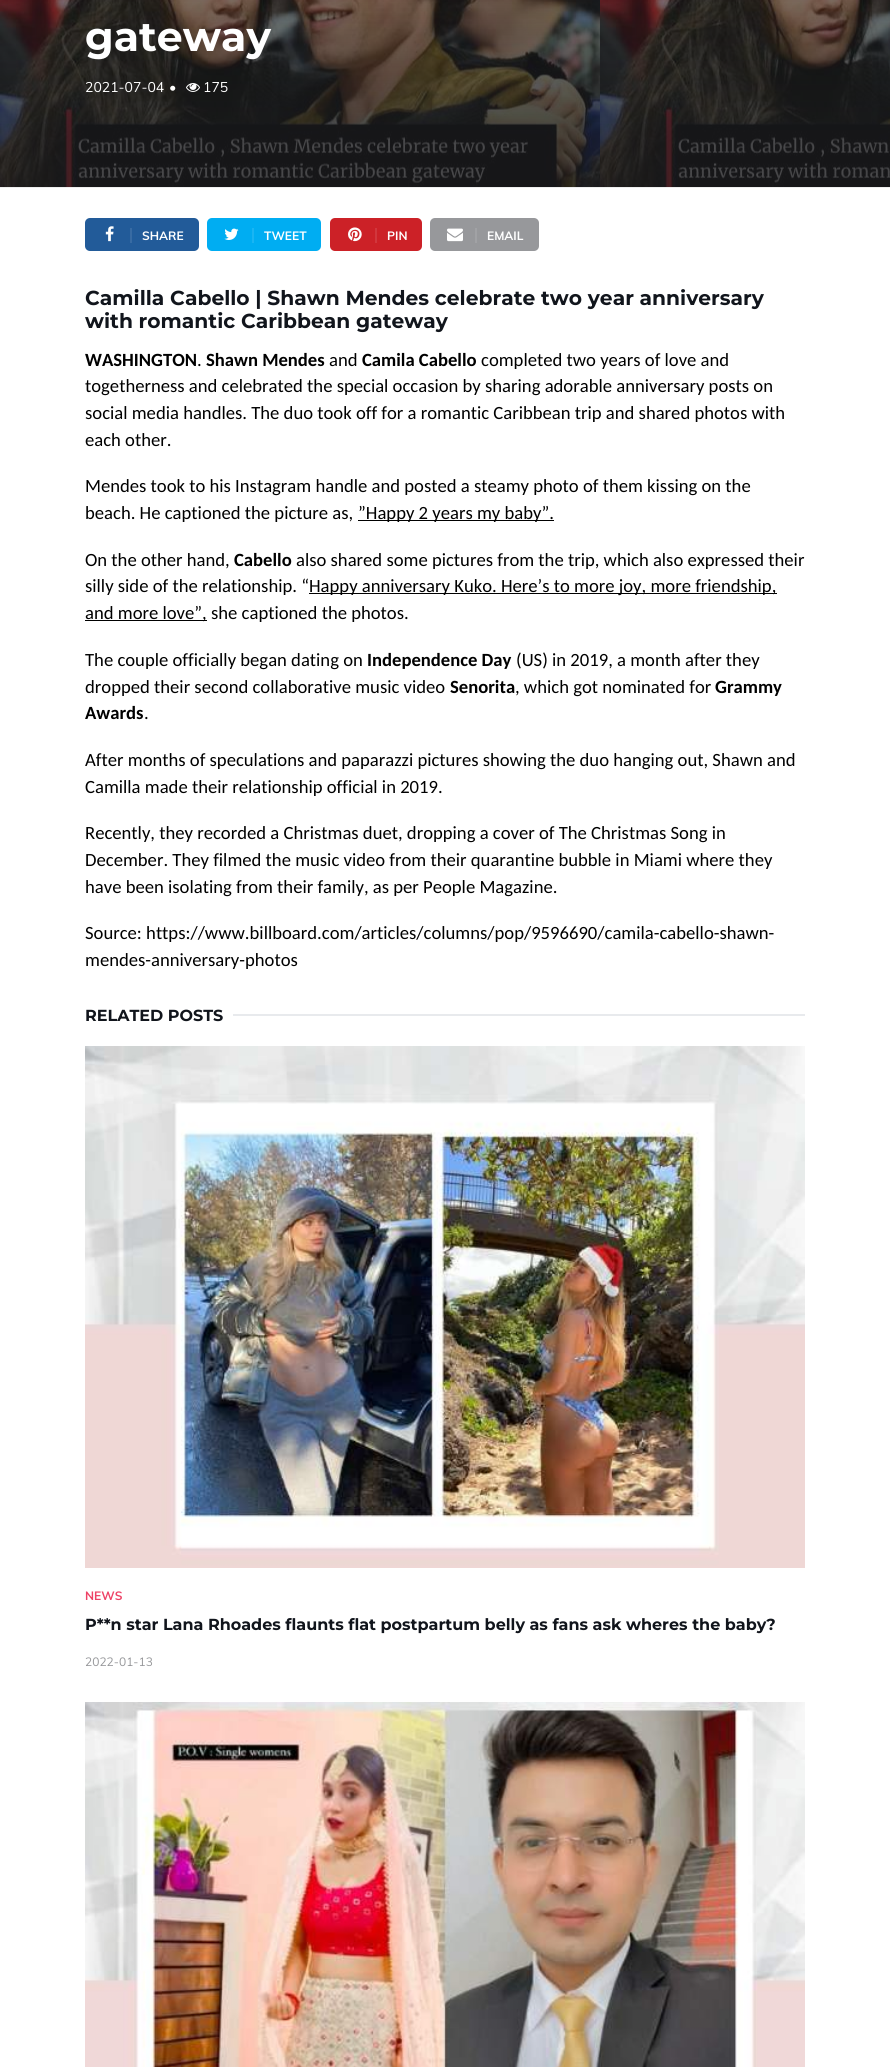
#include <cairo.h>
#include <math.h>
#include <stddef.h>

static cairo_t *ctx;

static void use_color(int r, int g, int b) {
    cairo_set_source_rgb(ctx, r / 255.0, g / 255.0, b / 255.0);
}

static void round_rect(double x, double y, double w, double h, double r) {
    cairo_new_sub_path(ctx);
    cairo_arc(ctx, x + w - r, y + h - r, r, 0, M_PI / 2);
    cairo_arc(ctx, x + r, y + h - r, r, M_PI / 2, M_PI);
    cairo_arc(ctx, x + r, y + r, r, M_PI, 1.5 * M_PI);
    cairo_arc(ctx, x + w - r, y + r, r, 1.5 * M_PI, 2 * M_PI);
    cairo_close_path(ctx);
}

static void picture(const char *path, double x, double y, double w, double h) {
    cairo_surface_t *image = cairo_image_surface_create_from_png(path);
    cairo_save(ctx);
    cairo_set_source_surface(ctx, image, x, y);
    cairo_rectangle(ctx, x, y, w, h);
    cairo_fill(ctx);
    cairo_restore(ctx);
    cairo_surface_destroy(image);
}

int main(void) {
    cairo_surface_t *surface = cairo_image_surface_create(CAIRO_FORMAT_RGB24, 890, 2067);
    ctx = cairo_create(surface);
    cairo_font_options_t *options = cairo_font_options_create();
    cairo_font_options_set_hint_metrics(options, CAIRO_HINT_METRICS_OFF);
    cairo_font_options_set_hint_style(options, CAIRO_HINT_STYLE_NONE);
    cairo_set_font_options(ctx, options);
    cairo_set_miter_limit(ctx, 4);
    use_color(255, 255, 255);
    cairo_paint(ctx);
    use_color(238, 238, 238);
    cairo_rectangle(ctx, 0, 187, 890, 1);
    cairo_fill(ctx);
    picture("img1.png", 0, 0, 890, 187);
    cairo_select_font_face(ctx, "Montserrat Thin", CAIRO_FONT_SLANT_NORMAL, CAIRO_FONT_WEIGHT_NORMAL);
    cairo_set_font_size(ctx, 41);
    use_color(255, 255, 255);
    cairo_move_to(ctx, 85, 51);
    cairo_show_text(ctx, "gateway");
    cairo_select_font_face(ctx, "Muli", CAIRO_FONT_SLANT_NORMAL, CAIRO_FONT_WEIGHT_NORMAL);
    cairo_set_font_size(ctx, 14);
    cairo_move_to(ctx, 85, 92);
    cairo_show_text(ctx, "2021-07-04");
    cairo_move_to(ctx, 169, 92);
    cairo_show_text(ctx, "•");
    picture("img2.png", 186, 83, 14, 9);
    cairo_move_to(ctx, 203, 92);
    cairo_show_text(ctx, "175");
    use_color(34, 91, 153);
    round_rect(85, 218, 114, 33, 5);
    cairo_fill(ctx);
    picture("img3.png", 105, 226, 9, 16);
    cairo_select_font_face(ctx, "Muli", CAIRO_FONT_SLANT_NORMAL, CAIRO_FONT_WEIGHT_BOLD);
    cairo_set_font_size(ctx, 12);
    use_color(255, 255, 255);
    cairo_move_to(ctx, 142, 240);
    cairo_show_text(ctx, "SHARE");
    use_color(56, 107, 163);
    cairo_rectangle(ctx, 130, 228, 2, 15);
    cairo_fill(ctx);
    use_color(0, 173, 242);
    round_rect(207, 218, 114, 33, 5);
    cairo_fill(ctx);
    picture("img4.png", 224, 228, 15, 12);
    use_color(255, 255, 255);
    cairo_move_to(ctx, 264, 240);
    cairo_show_text(ctx, "TWEET");
    use_color(26, 181, 243);
    cairo_rectangle(ctx, 252, 228, 2, 15);
    cairo_fill(ctx);
    use_color(204, 33, 39);
    round_rect(330, 218, 92, 33, 5);
    cairo_fill(ctx);
    picture("img5.png", 348, 227, 14, 15);
    use_color(255, 255, 255);
    cairo_move_to(ctx, 387, 240);
    cairo_show_text(ctx, "PIN");
    use_color(209, 55, 61);
    cairo_rectangle(ctx, 375, 228, 2, 15);
    cairo_fill(ctx);
    use_color(151, 152, 155);
    round_rect(430, 218, 109, 33, 5);
    cairo_fill(ctx);
    picture("img6.png", 447, 228, 16, 14);
    use_color(255, 255, 255);
    cairo_move_to(ctx, 487, 240);
    cairo_show_text(ctx, "EMAIL");
    use_color(161, 162, 165);
    cairo_rectangle(ctx, 475, 228, 2, 15);
    cairo_fill(ctx);
    cairo_select_font_face(ctx, "Montserrat Thin", CAIRO_FONT_SLANT_NORMAL, CAIRO_FONT_WEIGHT_NORMAL);
    cairo_set_font_size(ctx, 20.25);
    use_color(17, 21, 28);
    cairo_move_to(ctx, 85, 305);
    cairo_show_text(ctx, "Camilla Cabello | Shawn Mendes celebrate two year anniversary");
    cairo_move_to(ctx, 85, 328);
    cairo_show_text(ctx, "with romantic Caribbean gateway");
    cairo_select_font_face(ctx, "Carlito", CAIRO_FONT_SLANT_NORMAL, CAIRO_FONT_WEIGHT_BOLD);
    cairo_set_font_size(ctx, 18.65);
    use_color(0, 0, 0);
    cairo_move_to(ctx, 85, 366);
    cairo_show_text(ctx, "WASHINGTON");
    cairo_select_font_face(ctx, "Carlito", CAIRO_FONT_SLANT_NORMAL, CAIRO_FONT_WEIGHT_NORMAL);
    cairo_move_to(ctx, 197, 366);
    cairo_show_text(ctx, ".");
    cairo_select_font_face(ctx, "Carlito", CAIRO_FONT_SLANT_NORMAL, CAIRO_FONT_WEIGHT_BOLD);
    cairo_move_to(ctx, 206, 366);
    cairo_show_text(ctx, "Shawn Mendes");
    cairo_select_font_face(ctx, "Carlito", CAIRO_FONT_SLANT_NORMAL, CAIRO_FONT_WEIGHT_NORMAL);
    cairo_move_to(ctx, 329, 366);
    cairo_show_text(ctx, "and");
    cairo_select_font_face(ctx, "Carlito", CAIRO_FONT_SLANT_NORMAL, CAIRO_FONT_WEIGHT_BOLD);
    cairo_move_to(ctx, 362, 366);
    cairo_show_text(ctx, "Camila Cabello");
    cairo_select_font_face(ctx, "Carlito", CAIRO_FONT_SLANT_NORMAL, CAIRO_FONT_WEIGHT_NORMAL);
    cairo_move_to(ctx, 481, 366);
    cairo_show_text(ctx, "completed two years of love and");
    cairo_move_to(ctx, 85, 392);
    cairo_show_text(ctx, "togetherness and celebrated the special occasion by sharing adorable anniversary posts on");
    cairo_move_to(ctx, 85, 419);
    cairo_show_text(ctx, "social media handles. The duo took off for a romantic Caribbean trip and shared photos with");
    cairo_move_to(ctx, 85, 446);
    cairo_show_text(ctx, "each other.");
    cairo_move_to(ctx, 85, 492);
    cairo_show_text(ctx, "Mendes took to his Instagram handle and posted a steamy photo of them kissing on the");
    cairo_move_to(ctx, 85, 519);
    cairo_show_text(ctx, "beach. He captioned the picture as,");
    cairo_rectangle(ctx, 358, 520, 196, 1);
    cairo_fill(ctx);
    cairo_move_to(ctx, 358, 519);
    cairo_show_text(ctx, "”Happy 2 years my baby”.");
    cairo_move_to(ctx, 85, 566);
    cairo_show_text(ctx, "On the other hand,");
    cairo_select_font_face(ctx, "Carlito", CAIRO_FONT_SLANT_NORMAL, CAIRO_FONT_WEIGHT_BOLD);
    cairo_move_to(ctx, 234, 566);
    cairo_show_text(ctx, "Cabello");
    cairo_select_font_face(ctx, "Carlito", CAIRO_FONT_SLANT_NORMAL, CAIRO_FONT_WEIGHT_NORMAL);
    cairo_move_to(ctx, 296, 566);
    cairo_show_text(ctx, "also shared some pictures from the trip, which also expressed their");
    cairo_move_to(ctx, 85, 592);
    cairo_show_text(ctx, "silly side of the relationship. “");
    cairo_rectangle(ctx, 309, 593, 468, 1);
    cairo_fill(ctx);
    cairo_move_to(ctx, 309, 592);
    cairo_show_text(ctx, "Happy anniversary Kuko. Here’s to more joy, more friendship,");
    cairo_rectangle(ctx, 85, 620, 122, 1);
    cairo_fill(ctx);
    cairo_move_to(ctx, 85, 619);
    cairo_show_text(ctx, "and more love”, she captioned the photos.");
    cairo_move_to(ctx, 85, 666);
    cairo_show_text(ctx, "The couple officially began dating on");
    cairo_select_font_face(ctx, "Carlito", CAIRO_FONT_SLANT_NORMAL, CAIRO_FONT_WEIGHT_BOLD);
    cairo_move_to(ctx, 367, 666);
    cairo_show_text(ctx, "Independence Day");
    cairo_select_font_face(ctx, "Carlito", CAIRO_FONT_SLANT_NORMAL, CAIRO_FONT_WEIGHT_NORMAL);
    cairo_move_to(ctx, 516, 666);
    cairo_show_text(ctx, "(US) in 2019, a month after they");
    cairo_move_to(ctx, 85, 693);
    cairo_show_text(ctx, "dropped their second collaborative music video");
    cairo_select_font_face(ctx, "Carlito", CAIRO_FONT_SLANT_NORMAL, CAIRO_FONT_WEIGHT_BOLD);
    cairo_move_to(ctx, 450, 693);
    cairo_show_text(ctx, "Senorita");
    cairo_select_font_face(ctx, "Carlito", CAIRO_FONT_SLANT_NORMAL, CAIRO_FONT_WEIGHT_NORMAL);
    cairo_move_to(ctx, 515, 693);
    cairo_show_text(ctx, ", which got nominated for");
    cairo_select_font_face(ctx, "Carlito", CAIRO_FONT_SLANT_NORMAL, CAIRO_FONT_WEIGHT_BOLD);
    cairo_move_to(ctx, 715, 693);
    cairo_show_text(ctx, "Grammy");
    cairo_move_to(ctx, 85, 719);
    cairo_show_text(ctx, "Awards");
    cairo_select_font_face(ctx, "Carlito", CAIRO_FONT_SLANT_NORMAL, CAIRO_FONT_WEIGHT_NORMAL);
    cairo_move_to(ctx, 144, 719);
    cairo_show_text(ctx, ".");
    cairo_move_to(ctx, 85, 766);
    cairo_show_text(ctx, "After months of speculations and paparazzi pictures showing the duo hanging out, Shawn and");
    cairo_move_to(ctx, 85, 793);
    cairo_show_text(ctx, "Camilla made their relationship official in 2019.");
    cairo_move_to(ctx, 85, 839);
    cairo_show_text(ctx, "Recently, they recorded a Christmas duet, dropping a cover of The Christmas Song in");
    cairo_move_to(ctx, 85, 866);
    cairo_show_text(ctx, "December. They filmed the music video from their quarantine bubble in Miami where they");
    cairo_move_to(ctx, 85, 893);
    cairo_show_text(ctx, "have been isolating from their family, as per People Magazine.");
    cairo_move_to(ctx, 85, 939);
    cairo_show_text(ctx, "Source: https://www.billboard.com/articles/columns/pop/9596690/camila-cabello-shawn-");
    cairo_move_to(ctx, 85, 966);
    cairo_show_text(ctx, "mendes-anniversary-photos");
    cairo_select_font_face(ctx, "Montserrat Thin", CAIRO_FONT_SLANT_NORMAL, CAIRO_FONT_WEIGHT_NORMAL);
    cairo_set_font_size(ctx, 16);
    use_color(17, 21, 28);
    cairo_move_to(ctx, 85, 1021);
    cairo_show_text(ctx, "RELATED POSTS");
    use_color(232, 234, 237);
    cairo_rectangle(ctx, 233, 1014, 572, 2);
    cairo_fill(ctx);
    picture("img7.png", 85, 1046, 720, 522);
    cairo_select_font_face(ctx, "Muli", CAIRO_FONT_SLANT_NORMAL, CAIRO_FONT_WEIGHT_BOLD);
    cairo_set_font_size(ctx, 12);
    use_color(238, 66, 102);
    cairo_move_to(ctx, 85, 1600);
    cairo_show_text(ctx, "NEWS");
    cairo_select_font_face(ctx, "Montserrat Thin", CAIRO_FONT_SLANT_NORMAL, CAIRO_FONT_WEIGHT_NORMAL);
    cairo_set_font_size(ctx, 16);
    use_color(17, 21, 28);
    cairo_move_to(ctx, 85, 1630);
    cairo_show_text(ctx, "P**n star Lana Rhoades flaunts flat postpartum belly as fans ask wheres the baby?");
    cairo_select_font_face(ctx, "Muli", CAIRO_FONT_SLANT_NORMAL, CAIRO_FONT_WEIGHT_NORMAL);
    cairo_set_font_size(ctx, 12);
    use_color(151, 152, 155);
    cairo_move_to(ctx, 85, 1666);
    cairo_show_text(ctx, "2022-01-13");
    picture("img8.png", 85, 1702, 720, 365);
    cairo_surface_write_to_png(surface, "result.png");
    cairo_font_options_destroy(options);
    cairo_destroy(ctx);
    cairo_surface_destroy(surface);
    return 0;
}
